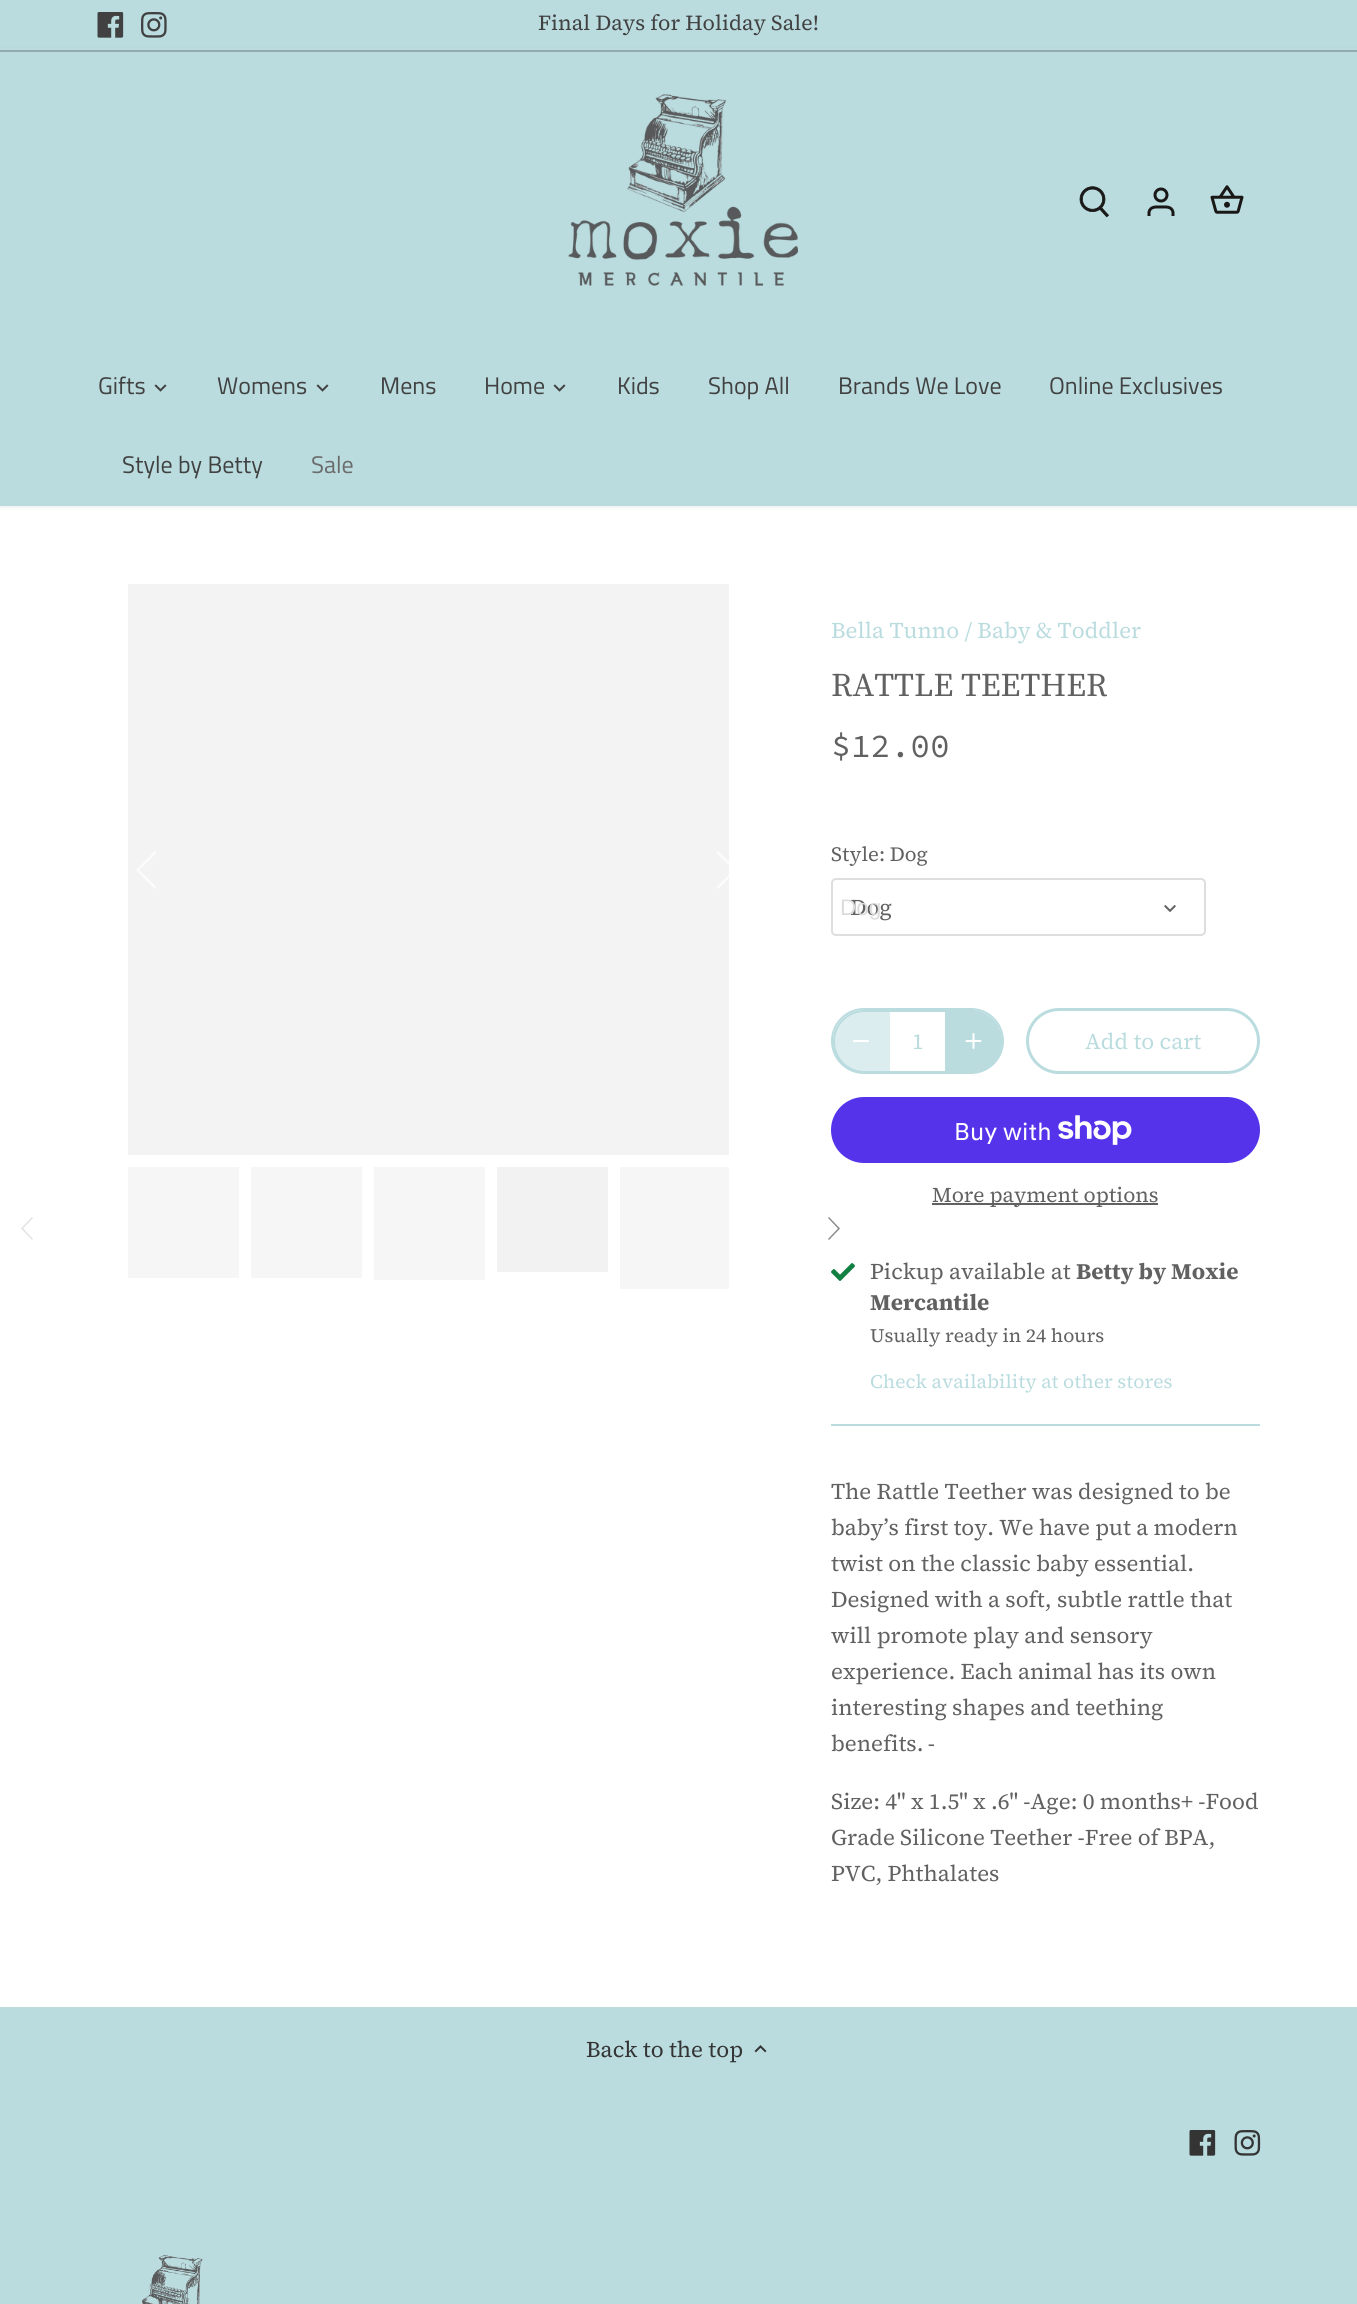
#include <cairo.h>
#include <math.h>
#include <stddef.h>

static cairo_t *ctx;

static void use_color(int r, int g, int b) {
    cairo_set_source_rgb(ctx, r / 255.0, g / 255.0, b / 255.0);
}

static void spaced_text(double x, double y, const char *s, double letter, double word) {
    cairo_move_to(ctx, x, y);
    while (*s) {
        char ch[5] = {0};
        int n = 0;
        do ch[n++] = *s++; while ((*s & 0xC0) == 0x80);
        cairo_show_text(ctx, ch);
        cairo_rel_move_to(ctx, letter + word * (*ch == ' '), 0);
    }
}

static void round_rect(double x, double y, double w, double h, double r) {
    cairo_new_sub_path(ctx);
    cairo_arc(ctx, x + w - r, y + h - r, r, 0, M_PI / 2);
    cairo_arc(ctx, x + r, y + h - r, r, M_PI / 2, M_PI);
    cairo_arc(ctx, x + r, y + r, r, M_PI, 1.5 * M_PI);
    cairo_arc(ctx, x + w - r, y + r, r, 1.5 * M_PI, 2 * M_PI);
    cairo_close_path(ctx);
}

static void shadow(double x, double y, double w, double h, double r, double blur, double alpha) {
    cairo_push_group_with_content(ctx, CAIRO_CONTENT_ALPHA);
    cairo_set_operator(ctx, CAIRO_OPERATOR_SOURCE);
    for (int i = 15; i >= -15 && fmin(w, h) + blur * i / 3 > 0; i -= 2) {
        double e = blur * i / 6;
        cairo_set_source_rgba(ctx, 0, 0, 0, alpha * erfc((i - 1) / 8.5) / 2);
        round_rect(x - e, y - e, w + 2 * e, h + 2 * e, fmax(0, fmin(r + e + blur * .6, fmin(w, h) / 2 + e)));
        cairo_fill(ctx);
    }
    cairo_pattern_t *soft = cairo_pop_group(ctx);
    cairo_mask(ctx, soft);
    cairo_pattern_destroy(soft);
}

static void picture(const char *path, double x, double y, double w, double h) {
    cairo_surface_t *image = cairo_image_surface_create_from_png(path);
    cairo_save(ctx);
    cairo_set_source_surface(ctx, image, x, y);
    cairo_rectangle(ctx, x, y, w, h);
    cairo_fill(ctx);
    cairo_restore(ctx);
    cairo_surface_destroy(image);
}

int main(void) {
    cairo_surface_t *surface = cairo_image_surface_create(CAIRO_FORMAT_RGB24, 1357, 2304);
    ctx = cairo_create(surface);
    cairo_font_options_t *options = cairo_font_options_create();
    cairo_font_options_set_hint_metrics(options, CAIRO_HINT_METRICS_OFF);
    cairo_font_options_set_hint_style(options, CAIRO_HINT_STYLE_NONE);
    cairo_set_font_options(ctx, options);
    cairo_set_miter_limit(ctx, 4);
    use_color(186, 220, 223);
    cairo_paint(ctx);
    use_color(255, 255, 255);
    cairo_rectangle(ctx, 0, 506, 1357, 1501);
    cairo_fill(ctx);
    use_color(0, 0, 0);
    shadow(-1, 50, 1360, 457, 0, 2, 0.08);
    use_color(186, 220, 223);
    cairo_rectangle(ctx, 0, 48, 1357, 2);
    cairo_fill(ctx);
    use_color(146, 171, 173);
    cairo_rectangle(ctx, 0, 50, 1357, 2);
    cairo_fill(ctx);
    picture("img1.png", 97, 12, 27, 26);
    picture("img2.png", 141, 12, 26, 26);
    cairo_select_font_face(ctx, "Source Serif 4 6", CAIRO_FONT_SLANT_NORMAL, CAIRO_FONT_WEIGHT_NORMAL);
    cairo_set_font_size(ctx, 21.4);
    use_color(65, 65, 65);
    cairo_move_to(ctx, 538, 30);
    cairo_show_text(ctx, "Final Days for Holiday Sale!");
    use_color(186, 220, 223);
    cairo_rectangle(ctx, 0, 52, 1357, 454);
    cairo_fill(ctx);
    picture("img3.png", 568, 94, 230, 192);
    picture("img4.png", 1079, 186, 30, 32);
    cairo_arc(ctx, 1161, 195, 6, 0, 2 * M_PI);
    use_color(25, 24, 23);
    cairo_set_line_width(ctx, 3);
    cairo_stroke(ctx);
    cairo_new_path(ctx);
    cairo_move_to(ctx, 1173, 216);
    cairo_line_to(ctx, 1173, 212);
    cairo_curve_to(ctx, 1171.5, 206, 1165.5, 207, 1161, 207);
    cairo_curve_to(ctx, 1156.5, 207, 1150.5, 206, 1149, 212);
    cairo_line_to(ctx, 1149, 216);
    cairo_stroke(ctx);
    picture("img5.png", 1210, 185, 34, 29);
    cairo_select_font_face(ctx, "Titillium Web", CAIRO_FONT_SLANT_NORMAL, CAIRO_FONT_WEIGHT_NORMAL);
    cairo_set_font_size(ctx, 24);
    use_color(65, 65, 65);
    cairo_move_to(ctx, 98, 394);
    cairo_show_text(ctx, "Gifts");
    picture("img6.png", 154, 384, 13, 8);
    cairo_move_to(ctx, 217, 394);
    cairo_show_text(ctx, "Womens");
    picture("img6.png", 316, 384, 13, 8);
    cairo_move_to(ctx, 380, 394);
    cairo_show_text(ctx, "Mens");
    cairo_move_to(ctx, 484, 394);
    cairo_show_text(ctx, "Home");
    picture("img6.png", 553, 384, 13, 8);
    cairo_move_to(ctx, 617, 394);
    cairo_show_text(ctx, "Kids");
    cairo_move_to(ctx, 708, 394);
    cairo_show_text(ctx, "Shop All");
    cairo_move_to(ctx, 838, 394);
    cairo_show_text(ctx, "Brands We Love");
    cairo_move_to(ctx, 1049, 394);
    cairo_show_text(ctx, "Online Exclusives");
    cairo_move_to(ctx, 122, 473);
    cairo_show_text(ctx, "Style by Betty");
    use_color(107, 107, 107);
    cairo_move_to(ctx, 311, 473);
    cairo_show_text(ctx, "Sale");
    use_color(243, 243, 243);
    cairo_rectangle(ctx, 128, 584, 601, 571);
    cairo_fill(ctx);
    use_color(252, 252, 252);
    cairo_new_path(ctx);
    cairo_move_to(ctx, 156.5, 853);
    cairo_line_to(ctx, 155, 851);
    cairo_line_to(ctx, 136, 870);
    cairo_line_to(ctx, 155, 889);
    cairo_line_to(ctx, 156.5, 887);
    cairo_line_to(ctx, 139, 870);
    cairo_close_path(ctx);
    cairo_fill(ctx);
    cairo_set_source_rgba(ctx, 1, 1, 1, 0.75);
    cairo_new_path(ctx);
    cairo_move_to(ctx, 718, 851);
    cairo_line_to(ctx, 716.5, 853);
    cairo_line_to(ctx, 734, 870);
    cairo_line_to(ctx, 716.5, 887);
    cairo_line_to(ctx, 718, 889);
    cairo_line_to(ctx, 737, 870);
    cairo_close_path(ctx);
    cairo_fill(ctx);
    use_color(225, 225, 225);
    cairo_new_path(ctx);
    cairo_move_to(ctx, 33, 1218);
    cairo_line_to(ctx, 32, 1217);
    cairo_line_to(ctx, 21, 1228.5);
    cairo_line_to(ctx, 32, 1240);
    cairo_line_to(ctx, 33, 1239);
    cairo_line_to(ctx, 23, 1228.5);
    cairo_close_path(ctx);
    cairo_fill(ctx);
    use_color(246, 246, 246);
    cairo_rectangle(ctx, 128, 1167, 111, 111);
    cairo_fill(ctx);
    cairo_rectangle(ctx, 251, 1167, 111, 111);
    cairo_fill(ctx);
    cairo_rectangle(ctx, 374, 1167, 111, 113);
    cairo_fill(ctx);
    use_color(242, 242, 242);
    cairo_rectangle(ctx, 497, 1167, 111, 105);
    cairo_fill(ctx);
    use_color(246, 246, 246);
    cairo_rectangle(ctx, 620, 1167, 109, 122);
    cairo_fill(ctx);
    use_color(137, 137, 137);
    cairo_new_path(ctx);
    cairo_move_to(ctx, 829, 1217);
    cairo_line_to(ctx, 828, 1218);
    cairo_line_to(ctx, 838, 1228.5);
    cairo_line_to(ctx, 828, 1239);
    cairo_line_to(ctx, 829, 1240);
    cairo_line_to(ctx, 840, 1228.5);
    cairo_close_path(ctx);
    cairo_fill(ctx);
    cairo_select_font_face(ctx, "Source Serif 4", CAIRO_FONT_SLANT_NORMAL, CAIRO_FONT_WEIGHT_NORMAL);
    cairo_set_font_size(ctx, 22.5);
    use_color(186, 220, 223);
    cairo_move_to(ctx, 831, 638);
    cairo_show_text(ctx, "Bella Tunno / Baby & Toddler");
    cairo_select_font_face(ctx, "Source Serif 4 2", CAIRO_FONT_SLANT_NORMAL, CAIRO_FONT_WEIGHT_NORMAL);
    cairo_set_font_size(ctx, 33);
    use_color(97, 97, 97);
    cairo_move_to(ctx, 831, 696);
    cairo_show_text(ctx, "RATTLE TEETHER");
    cairo_select_font_face(ctx, "Source Code Pro", CAIRO_FONT_SLANT_NORMAL, CAIRO_FONT_WEIGHT_NORMAL);
    cairo_move_to(ctx, 831, 757);
    cairo_show_text(ctx, "$12.00");
    cairo_select_font_face(ctx, "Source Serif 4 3", CAIRO_FONT_SLANT_NORMAL, CAIRO_FONT_WEIGHT_NORMAL);
    cairo_set_font_size(ctx, 20.25);
    cairo_move_to(ctx, 831, 861);
    cairo_show_text(ctx, "Style: Dog");
    round_rect(832, 879, 373, 56, 4);
    use_color(222, 222, 222);
    cairo_set_line_width(ctx, 2);
    cairo_stroke(ctx);
    cairo_select_font_face(ctx, "Source Serif 4", CAIRO_FONT_SLANT_NORMAL, CAIRO_FONT_WEIGHT_NORMAL);
    cairo_set_font_size(ctx, 22.5);
    use_color(97, 97, 97);
    cairo_move_to(ctx, 850, 915);
    cairo_show_text(ctx, "Dog");
    cairo_select_font_face(ctx, "Liberation Sans", CAIRO_FONT_SLANT_NORMAL, CAIRO_FONT_WEIGHT_NORMAL);
    use_color(220, 220, 220);
    cairo_move_to(ctx, 840, 915);
    cairo_show_text(ctx, "Dog");
    picture("img7.png", 1164, 905, 12, 8);
    round_rect(834, 1011, 167, 61, 30.5);
    use_color(186, 220, 223);
    cairo_stroke(ctx);
    round_rect(832, 1009, 171, 64, 32);
    cairo_stroke(ctx);
    cairo_set_source_rgba(ctx, 0.729, 0.863, 0.875, 0.5);
    cairo_new_path(ctx);
    cairo_move_to(ctx, 864.5, 1010);
    cairo_line_to(ctx, 890, 1010);
    cairo_line_to(ctx, 890, 1073);
    cairo_line_to(ctx, 864.5, 1073);
    cairo_curve_to(ctx, 847, 1073, 833, 1059, 833, 1041.5);
    cairo_curve_to(ctx, 833, 1024, 847, 1010, 864.5, 1010);
    cairo_close_path(ctx);
    cairo_fill(ctx);
    cairo_new_path(ctx);
    cairo_move_to(ctx, 854, 1041);
    cairo_line_to(ctx, 868, 1041);
    use_color(255, 255, 255);
    cairo_set_line_cap(ctx, CAIRO_LINE_CAP_ROUND);
    cairo_set_line_join(ctx, CAIRO_LINE_JOIN_ROUND);
    cairo_stroke(ctx);
    cairo_select_font_face(ctx, "Source Serif 4", CAIRO_FONT_SLANT_NORMAL, CAIRO_FONT_WEIGHT_NORMAL);
    use_color(186, 220, 223);
    cairo_move_to(ctx, 912, 1049);
    cairo_show_text(ctx, "1");
    cairo_new_path(ctx);
    cairo_move_to(ctx, 945, 1010);
    cairo_line_to(ctx, 970.5, 1010);
    cairo_curve_to(ctx, 988, 1010, 1002, 1024, 1002, 1041.5);
    cairo_curve_to(ctx, 1002, 1059, 988, 1073, 970.5, 1073);
    cairo_line_to(ctx, 945, 1073);
    cairo_close_path(ctx);
    cairo_fill(ctx);
    cairo_new_path(ctx);
    cairo_move_to(ctx, 973.5, 1034);
    cairo_line_to(ctx, 973.5, 1048);
    cairo_move_to(ctx, 966.5, 1041);
    cairo_line_to(ctx, 980.5, 1041);
    use_color(255, 255, 255);
    cairo_stroke(ctx);
    round_rect(1027.5, 1009.5, 231, 63, 31.5);
    use_color(186, 220, 223);
    cairo_set_line_width(ctx, 3);
    cairo_set_line_cap(ctx, CAIRO_LINE_CAP_BUTT);
    cairo_set_line_join(ctx, CAIRO_LINE_JOIN_MITER);
    cairo_stroke(ctx);
    cairo_move_to(ctx, 1085, 1049);
    cairo_show_text(ctx, "Add to cart");
    use_color(84, 51, 235);
    round_rect(831, 1097, 429, 66, 33);
    cairo_fill(ctx);
    cairo_select_font_face(ctx, "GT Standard", CAIRO_FONT_SLANT_NORMAL, CAIRO_FONT_WEIGHT_NORMAL);
    cairo_set_font_size(ctx, 24);
    use_color(255, 255, 255);
    cairo_move_to(ctx, 954, 1140);
    cairo_show_text(ctx, "Buy with");
    picture("img8.png", 1058, 1115, 74, 30);
    use_color(97, 97, 97);
    cairo_rectangle(ctx, 932, 1203, 226, 2);
    cairo_fill(ctx);
    cairo_select_font_face(ctx, "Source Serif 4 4", CAIRO_FONT_SLANT_NORMAL, CAIRO_FONT_WEIGHT_NORMAL);
    cairo_set_font_size(ctx, 21);
    cairo_move_to(ctx, 932, 1202);
    cairo_show_text(ctx, "More payment options");
    picture("img9.png", 831, 1263, 24, 18);
    cairo_select_font_face(ctx, "Source Serif 4", CAIRO_FONT_SLANT_NORMAL, CAIRO_FONT_WEIGHT_NORMAL);
    cairo_set_font_size(ctx, 22.5);
    cairo_move_to(ctx, 870, 1279);
    cairo_show_text(ctx, "Pickup available at");
    cairo_select_font_face(ctx, "Source Serif 4", CAIRO_FONT_SLANT_NORMAL, CAIRO_FONT_WEIGHT_BOLD);
    cairo_move_to(ctx, 1076, 1279);
    cairo_show_text(ctx, "Betty by Moxie");
    cairo_move_to(ctx, 870, 1310);
    cairo_show_text(ctx, "Mercantile");
    cairo_select_font_face(ctx, "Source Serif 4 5", CAIRO_FONT_SLANT_NORMAL, CAIRO_FONT_WEIGHT_NORMAL);
    cairo_set_font_size(ctx, 19.1);
    cairo_move_to(ctx, 870, 1342);
    cairo_show_text(ctx, "Usually ready in 24 hours");
    use_color(186, 220, 223);
    cairo_move_to(ctx, 870, 1388);
    cairo_show_text(ctx, "Check availability at other stores");
    cairo_rectangle(ctx, 831, 1424, 429, 2);
    cairo_fill(ctx);
    cairo_select_font_face(ctx, "Source Serif 4", CAIRO_FONT_SLANT_NORMAL, CAIRO_FONT_WEIGHT_NORMAL);
    cairo_set_font_size(ctx, 22.5);
    use_color(97, 97, 97);
    cairo_move_to(ctx, 831, 1499);
    cairo_show_text(ctx, "The Rattle Teether was designed to be");
    cairo_move_to(ctx, 831, 1535);
    cairo_show_text(ctx, "baby’s first toy. We have put a modern");
    cairo_move_to(ctx, 831, 1571);
    cairo_show_text(ctx, "twist on the classic baby essential.");
    cairo_move_to(ctx, 831, 1607);
    cairo_show_text(ctx, "Designed with a soft, subtle rattle that");
    cairo_move_to(ctx, 831, 1643);
    cairo_show_text(ctx, "will promote play and sensory");
    cairo_move_to(ctx, 831, 1679);
    cairo_show_text(ctx, "experience. Each animal has its own");
    cairo_move_to(ctx, 831, 1715);
    cairo_show_text(ctx, "interesting shapes and teething");
    spaced_text(831, 1751, "benefits. -", 0, -1);
    cairo_move_to(ctx, 831, 1809);
    cairo_show_text(ctx, "Size: 4\" x 1.5\" x .6\" -Age: 0 months+ -Food");
    cairo_move_to(ctx, 831, 1845);
    cairo_show_text(ctx, "Grade Silicone Teether -Free of BPA,");
    cairo_move_to(ctx, 831, 1881);
    cairo_show_text(ctx, "PVC, Phthalates");
    use_color(52, 52, 52);
    cairo_move_to(ctx, 586, 2057);
    cairo_show_text(ctx, "Back to the top");
    picture("img10.png", 754, 2045, 13, 8);
    picture("img11.png", 1189, 2130, 27, 26);
    picture("img12.png", 1234, 2130, 27, 26);
    picture("img13.png", 142, 2255, 61, 49);
    cairo_surface_write_to_png(surface, "result.png");
    cairo_font_options_destroy(options);
    cairo_destroy(ctx);
    cairo_surface_destroy(surface);
    return 0;
}
